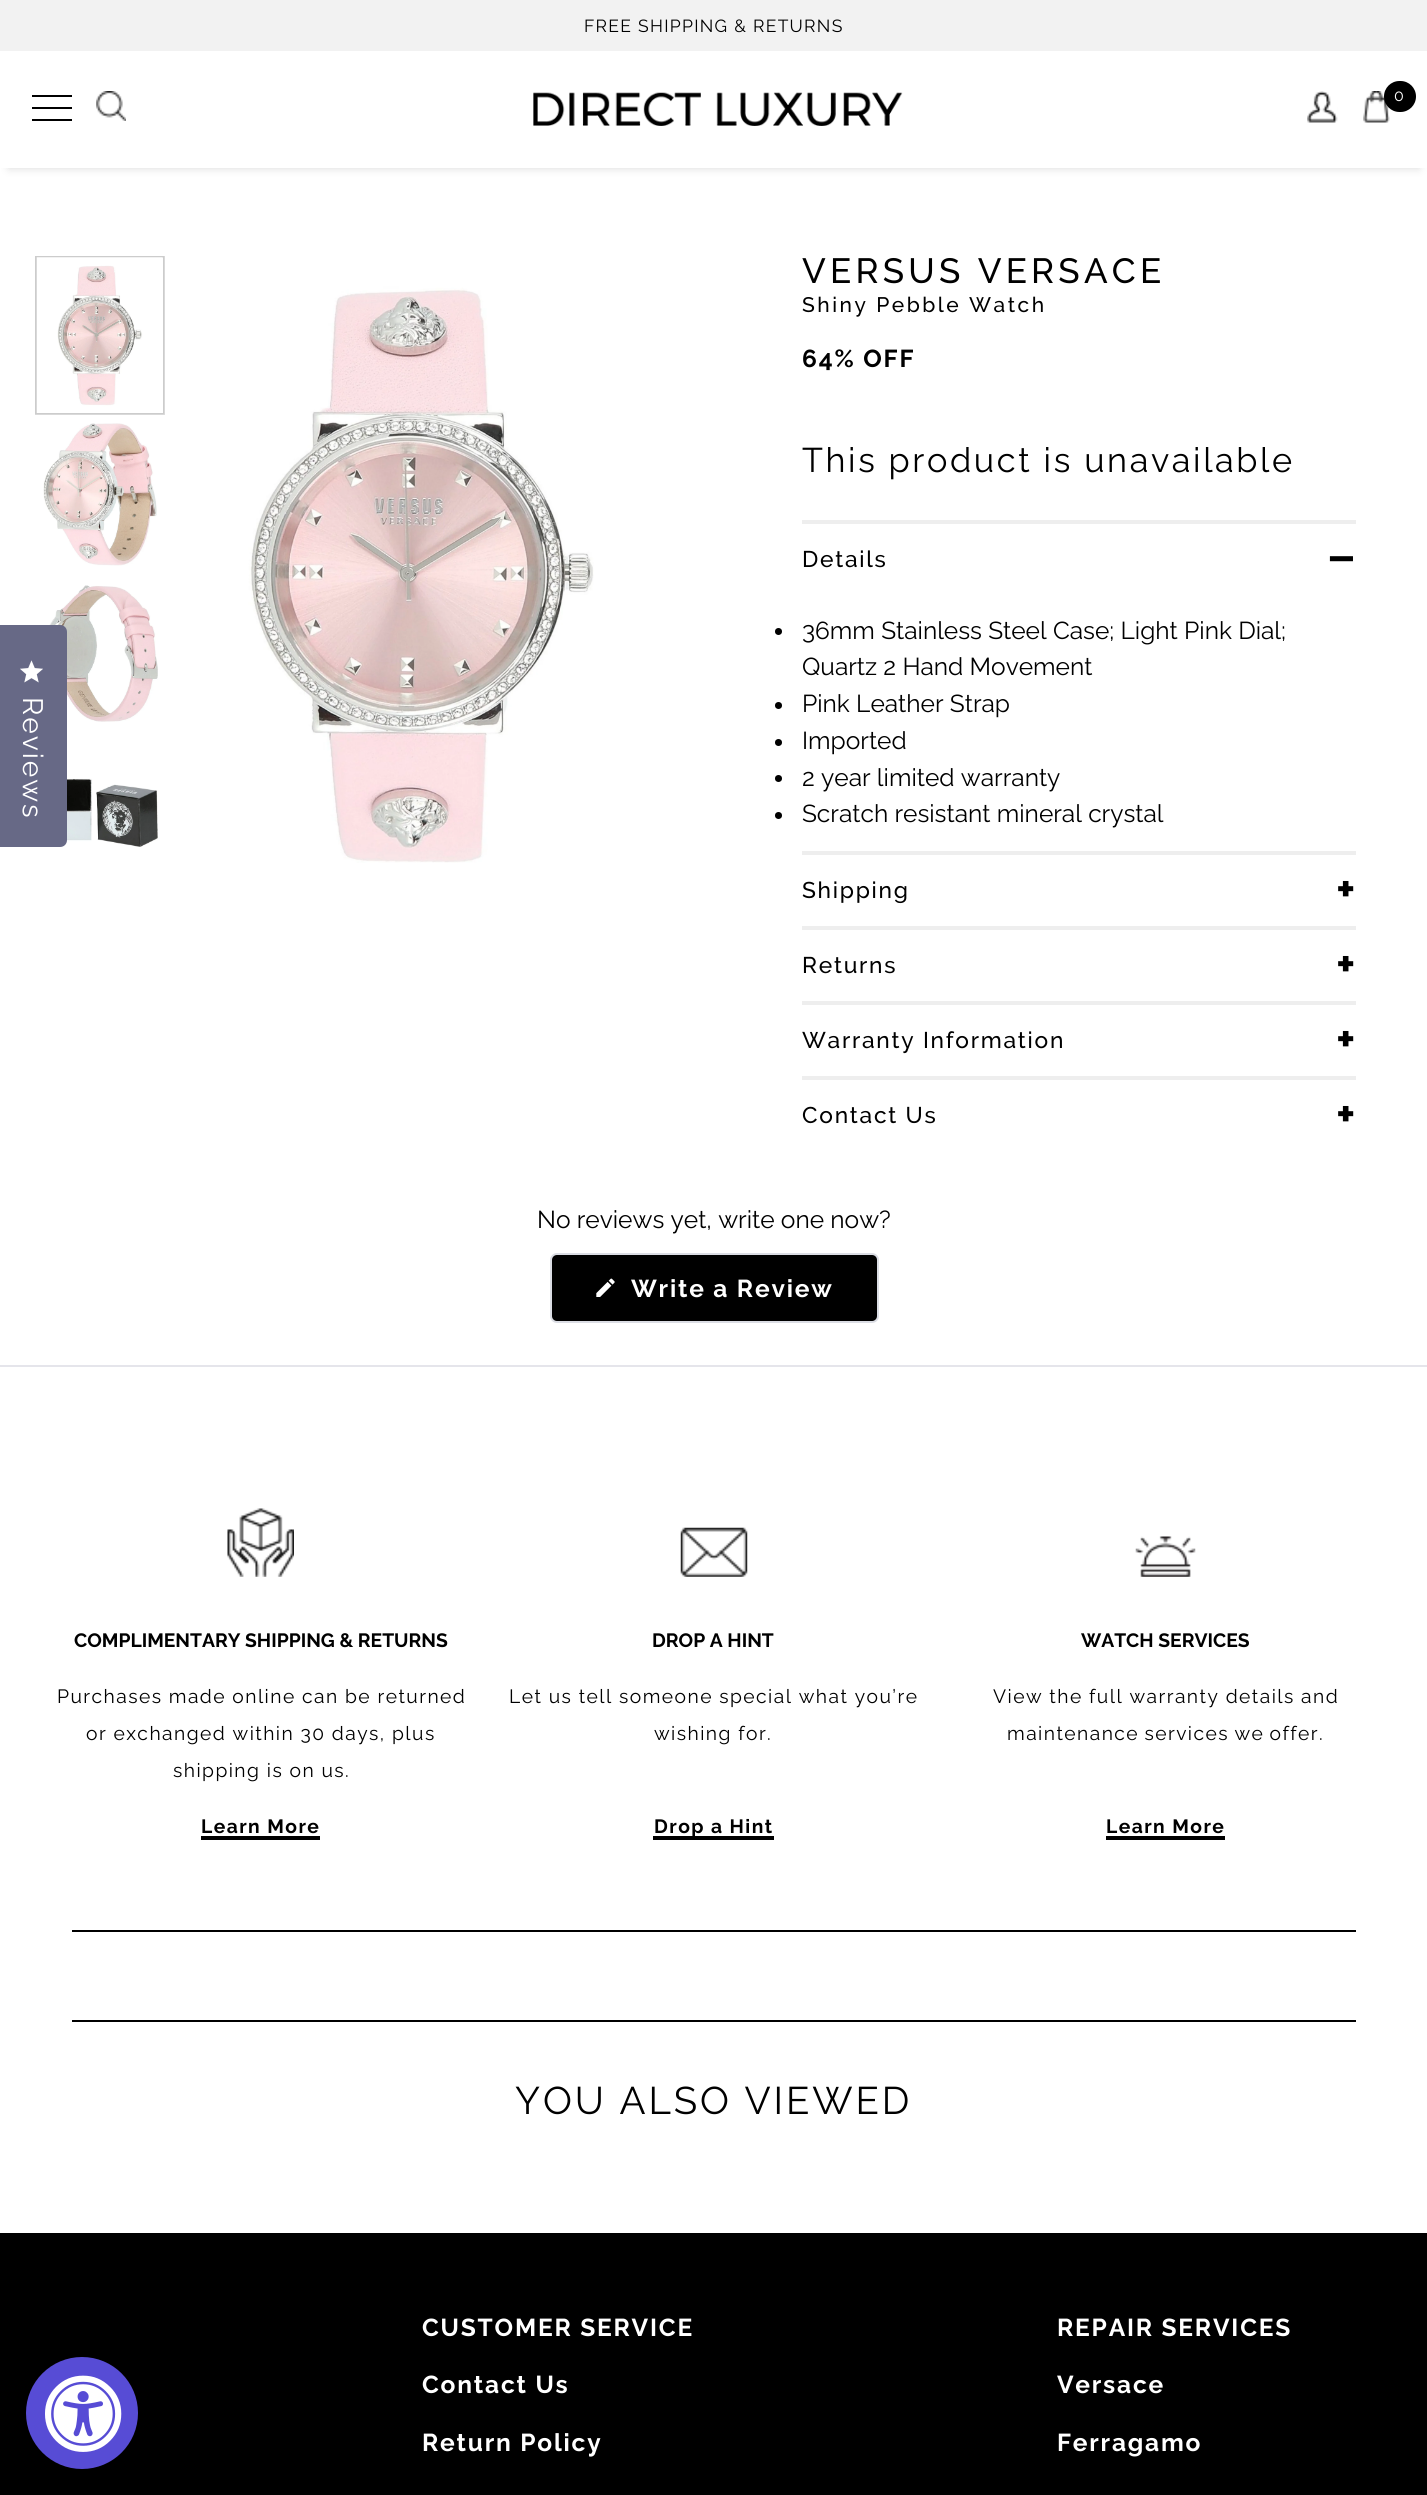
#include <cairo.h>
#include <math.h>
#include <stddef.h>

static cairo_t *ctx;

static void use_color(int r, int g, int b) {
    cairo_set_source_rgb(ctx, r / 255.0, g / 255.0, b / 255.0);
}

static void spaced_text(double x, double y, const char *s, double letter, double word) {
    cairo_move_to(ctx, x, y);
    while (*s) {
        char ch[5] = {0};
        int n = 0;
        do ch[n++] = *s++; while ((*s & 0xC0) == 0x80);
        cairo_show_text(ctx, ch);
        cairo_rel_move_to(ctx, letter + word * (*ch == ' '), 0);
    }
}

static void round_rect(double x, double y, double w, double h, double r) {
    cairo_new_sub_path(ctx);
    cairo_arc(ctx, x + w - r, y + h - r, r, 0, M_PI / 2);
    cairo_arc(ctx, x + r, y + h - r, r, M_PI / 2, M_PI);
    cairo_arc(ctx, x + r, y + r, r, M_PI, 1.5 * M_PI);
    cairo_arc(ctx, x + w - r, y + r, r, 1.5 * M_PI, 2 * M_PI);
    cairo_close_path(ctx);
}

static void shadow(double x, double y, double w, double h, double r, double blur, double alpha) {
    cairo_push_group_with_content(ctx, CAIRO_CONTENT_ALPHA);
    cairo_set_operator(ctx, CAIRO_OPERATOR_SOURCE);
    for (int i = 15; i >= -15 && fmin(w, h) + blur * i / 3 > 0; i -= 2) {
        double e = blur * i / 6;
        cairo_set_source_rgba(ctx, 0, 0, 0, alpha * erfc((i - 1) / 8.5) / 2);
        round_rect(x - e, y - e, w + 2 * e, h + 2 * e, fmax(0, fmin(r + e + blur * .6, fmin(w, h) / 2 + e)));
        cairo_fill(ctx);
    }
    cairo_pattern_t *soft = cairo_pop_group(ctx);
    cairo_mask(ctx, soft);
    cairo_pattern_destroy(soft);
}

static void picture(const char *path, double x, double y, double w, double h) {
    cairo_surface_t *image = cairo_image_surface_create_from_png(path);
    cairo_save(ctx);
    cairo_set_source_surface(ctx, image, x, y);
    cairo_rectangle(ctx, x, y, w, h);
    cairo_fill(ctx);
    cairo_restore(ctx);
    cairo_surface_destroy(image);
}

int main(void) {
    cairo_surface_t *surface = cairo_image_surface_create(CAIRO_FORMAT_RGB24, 1427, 2495);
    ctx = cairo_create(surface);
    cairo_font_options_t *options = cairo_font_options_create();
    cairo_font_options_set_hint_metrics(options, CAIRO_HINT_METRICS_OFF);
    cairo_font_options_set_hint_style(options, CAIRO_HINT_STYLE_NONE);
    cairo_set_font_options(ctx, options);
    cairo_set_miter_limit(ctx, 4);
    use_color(255, 255, 255);
    cairo_paint(ctx);
    use_color(242, 242, 242);
    cairo_rectangle(ctx, 0, 0, 1427, 51);
    cairo_fill(ctx);
    cairo_select_font_face(ctx, "Raleway", CAIRO_FONT_SLANT_NORMAL, CAIRO_FONT_WEIGHT_NORMAL);
    cairo_set_font_size(ctx, 17.5);
    use_color(0, 0, 0);
    spaced_text(584, 32, "FREE SHIPPING & RETURNS", 1.3, 0);
    cairo_save(ctx);
    cairo_rectangle(ctx, 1, 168, 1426, 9);
    cairo_clip(ctx);
    use_color(216, 216, 216);
    shadow(9, 68, 1410, 100, 0, 4.5, 1);
    cairo_restore(ctx);
    cairo_rectangle(ctx, 32, 95, 40, 2);
    cairo_fill(ctx);
    cairo_rectangle(ctx, 32, 107, 40, 2);
    cairo_fill(ctx);
    cairo_rectangle(ctx, 32, 119, 40, 2);
    cairo_fill(ctx);
    picture("img1.png", 96, 91, 30, 30);
    picture("img2.png", 533, 92, 370, 34);
    picture("img3.png", 1307, 91, 31, 32);
    picture("img4.png", 1363, 91, 27, 32);
    round_rect(1384, 81, 32, 31, 15.5);
    cairo_fill(ctx);
    cairo_set_font_size(ctx, 16);
    use_color(255, 255, 255);
    spaced_text(1394, 101, "0", 1.8, 0);
    picture("img8.png", 42, 585, 116, 137);
    picture("img9.png", 60, 778, 98, 69);
    use_color(103, 105, 134);
    cairo_new_path(ctx);
    cairo_move_to(ctx, -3, 625);
    cairo_line_to(ctx, 60, 625);
    cairo_curve_to(ctx, 64, 625, 67, 628, 67, 632);
    cairo_line_to(ctx, 67, 840);
    cairo_curve_to(ctx, 67, 844, 64, 847, 60, 847);
    cairo_line_to(ctx, -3, 847);
    cairo_close_path(ctx);
    cairo_fill(ctx);
    picture("img5.png", 20, 660, 23, 23);
    cairo_set_font_size(ctx, 28);
    use_color(255, 255, 255);
    cairo_save(ctx);
    cairo_translate(ctx, 23, 697);
    cairo_rotate(ctx, 90.1 * M_PI / 180);
    spaced_text(0, 0, "Reviews", 2, 0);
    cairo_restore(ctx);
    cairo_rectangle(ctx, 36, 257, 128, 157);
    use_color(204, 204, 204);
    cairo_stroke(ctx);
    picture("img6.png", 36, 257, 127, 156);
    picture("img7.png", 35, 414, 130, 152);
    picture("img10.png", 164, 256, 430, 607);
    cairo_select_font_face(ctx, "Raleway Medium", CAIRO_FONT_SLANT_NORMAL, CAIRO_FONT_WEIGHT_NORMAL);
    cairo_set_font_size(ctx, 35);
    use_color(0, 0, 0);
    spaced_text(802, 283, "VERSUS VERSACE", 4.25, 0);
    cairo_set_font_size(ctx, 21);
    spaced_text(802, 312, "Shiny Pebble Watch", 2.5, 0);
    cairo_select_font_face(ctx, "Raleway", CAIRO_FONT_SLANT_NORMAL, CAIRO_FONT_WEIGHT_BOLD);
    cairo_set_font_size(ctx, 24.5);
    spaced_text(802, 367, "64% OFF", 1.8, 0);
    cairo_select_font_face(ctx, "Raleway", CAIRO_FONT_SLANT_NORMAL, CAIRO_FONT_WEIGHT_NORMAL);
    cairo_set_font_size(ctx, 34.25);
    spaced_text(802, 472, "This product is unavailable", 2.6, 0);
    use_color(238, 238, 238);
    cairo_rectangle(ctx, 802, 520, 554, 4);
    cairo_fill(ctx);
    cairo_select_font_face(ctx, "Raleway Medium", CAIRO_FONT_SLANT_NORMAL, CAIRO_FONT_WEIGHT_NORMAL);
    cairo_set_font_size(ctx, 22.75);
    use_color(0, 0, 0);
    spaced_text(802, 567, "Details", 1.75, 0);
    cairo_select_font_face(ctx, "Liberation Sans", CAIRO_FONT_SLANT_NORMAL, CAIRO_FONT_WEIGHT_BOLD);
    cairo_set_font_size(ctx, 46);
    spaced_text(1328, 574, "−", 1.75, 0);
    cairo_new_path(ctx);
    cairo_arc(ctx, 778.5, 631.5, 3.5, 0, 2 * M_PI);
    cairo_fill(ctx);
    cairo_select_font_face(ctx, "Raleway", CAIRO_FONT_SLANT_NORMAL, CAIRO_FONT_WEIGHT_NORMAL);
    cairo_set_font_size(ctx, 24.5);
    cairo_move_to(ctx, 802, 639);
    cairo_show_text(ctx, "36mm Stainless Steel Case; Light Pink Dial;");
    cairo_move_to(ctx, 802, 675);
    cairo_show_text(ctx, "Quartz 2 Hand Movement");
    cairo_new_path(ctx);
    cairo_arc(ctx, 778.5, 705.5, 3.5, 0, 2 * M_PI);
    cairo_fill(ctx);
    cairo_move_to(ctx, 802, 712);
    cairo_show_text(ctx, "Pink Leather Strap");
    cairo_new_path(ctx);
    cairo_arc(ctx, 778.5, 742.5, 3.5, 0, 2 * M_PI);
    cairo_fill(ctx);
    cairo_move_to(ctx, 802, 749);
    cairo_show_text(ctx, "Imported");
    cairo_new_path(ctx);
    cairo_arc(ctx, 778.5, 778.5, 3.5, 0, 2 * M_PI);
    cairo_fill(ctx);
    cairo_move_to(ctx, 802, 786);
    cairo_show_text(ctx, "2 year limited warranty");
    cairo_new_path(ctx);
    cairo_arc(ctx, 778.5, 815.5, 3.5, 0, 2 * M_PI);
    cairo_fill(ctx);
    cairo_move_to(ctx, 802, 822);
    cairo_show_text(ctx, "Scratch resistant mineral crystal");
    use_color(238, 238, 238);
    cairo_rectangle(ctx, 802, 851, 554, 4);
    cairo_fill(ctx);
    cairo_select_font_face(ctx, "Raleway Medium", CAIRO_FONT_SLANT_NORMAL, CAIRO_FONT_WEIGHT_NORMAL);
    cairo_set_font_size(ctx, 22.75);
    use_color(0, 0, 0);
    spaced_text(802, 898, "Shipping", 1.75, 0);
    cairo_select_font_face(ctx, "Raleway", CAIRO_FONT_SLANT_NORMAL, CAIRO_FONT_WEIGHT_BOLD);
    cairo_set_font_size(ctx, 46);
    spaced_text(1336, 905, "+", 1.75, 0);
    use_color(238, 238, 238);
    cairo_rectangle(ctx, 802, 926, 554, 4);
    cairo_fill(ctx);
    cairo_select_font_face(ctx, "Raleway Medium", CAIRO_FONT_SLANT_NORMAL, CAIRO_FONT_WEIGHT_NORMAL);
    cairo_set_font_size(ctx, 22.75);
    use_color(0, 0, 0);
    spaced_text(802, 973, "Returns", 1.75, 0);
    cairo_select_font_face(ctx, "Raleway", CAIRO_FONT_SLANT_NORMAL, CAIRO_FONT_WEIGHT_BOLD);
    cairo_set_font_size(ctx, 46);
    spaced_text(1336, 980, "+", 1.75, 0);
    use_color(238, 238, 238);
    cairo_rectangle(ctx, 802, 1001, 554, 4);
    cairo_fill(ctx);
    cairo_select_font_face(ctx, "Raleway Medium", CAIRO_FONT_SLANT_NORMAL, CAIRO_FONT_WEIGHT_NORMAL);
    cairo_set_font_size(ctx, 22.75);
    use_color(0, 0, 0);
    spaced_text(802, 1048, "Warranty Information", 1.75, 0);
    cairo_select_font_face(ctx, "Raleway", CAIRO_FONT_SLANT_NORMAL, CAIRO_FONT_WEIGHT_BOLD);
    cairo_set_font_size(ctx, 46);
    spaced_text(1336, 1055, "+", 1.75, 0);
    use_color(238, 238, 238);
    cairo_rectangle(ctx, 802, 1076, 554, 4);
    cairo_fill(ctx);
    cairo_select_font_face(ctx, "Raleway Medium", CAIRO_FONT_SLANT_NORMAL, CAIRO_FONT_WEIGHT_NORMAL);
    cairo_set_font_size(ctx, 22.75);
    use_color(0, 0, 0);
    spaced_text(802, 1123, "Contact Us", 1.75, 0);
    cairo_select_font_face(ctx, "Raleway", CAIRO_FONT_SLANT_NORMAL, CAIRO_FONT_WEIGHT_BOLD);
    cairo_set_font_size(ctx, 46);
    spaced_text(1336, 1130, "+", 1.75, 0);
    use_color(229, 229, 235);
    cairo_rectangle(ctx, 0, 1365, 1427, 2);
    cairo_fill(ctx);
    cairo_select_font_face(ctx, "Raleway", CAIRO_FONT_SLANT_NORMAL, CAIRO_FONT_WEIGHT_NORMAL);
    cairo_set_font_size(ctx, 24.5);
    use_color(0, 0, 0);
    cairo_move_to(ctx, 537, 1228);
    cairo_show_text(ctx, "No reviews yet, write one now?");
    round_rect(551, 1254, 327, 68, 6);
    cairo_fill_preserve(ctx);
    use_color(219, 221, 228);
    cairo_stroke(ctx);
    picture("img11.png", 596, 1278, 19, 19);
    cairo_select_font_face(ctx, "Raleway", CAIRO_FONT_SLANT_NORMAL, CAIRO_FONT_WEIGHT_BOLD);
    use_color(255, 255, 255);
    spaced_text(631, 1297, "Write a Review", 1.8, 0);
    picture("img12.png", 227, 1508, 67, 69);
    cairo_set_font_size(ctx, 19.25);
    use_color(0, 0, 0);
    cairo_move_to(ctx, 74, 1647);
    cairo_show_text(ctx, "COMPLIMENTARY SHIPPING & RETURNS");
    cairo_select_font_face(ctx, "Raleway", CAIRO_FONT_SLANT_NORMAL, CAIRO_FONT_WEIGHT_NORMAL);
    spaced_text(57, 1703, "Purchases made online can be returned", 1.45, 0);
    spaced_text(86, 1740, "or exchanged within 30 days, plus", 1.45, 0);
    spaced_text(173, 1777, "shipping is on us.", 1.45, 0);
    cairo_select_font_face(ctx, "Raleway", CAIRO_FONT_SLANT_NORMAL, CAIRO_FONT_WEIGHT_BOLD);
    spaced_text(201, 1833, "Learn More", 1.45, 0);
    cairo_rectangle(ctx, 201, 1836, 119, 4);
    cairo_fill(ctx);
    picture("img13.png", 680, 1527, 68, 50);
    cairo_move_to(ctx, 652, 1647);
    cairo_show_text(ctx, "DROP A HINT");
    cairo_select_font_face(ctx, "Raleway", CAIRO_FONT_SLANT_NORMAL, CAIRO_FONT_WEIGHT_NORMAL);
    spaced_text(509, 1703, "Let us tell someone special what you’re", 1.45, 0);
    spaced_text(654, 1740, "wishing for.", 1.45, 0);
    cairo_select_font_face(ctx, "Raleway", CAIRO_FONT_SLANT_NORMAL, CAIRO_FONT_WEIGHT_BOLD);
    spaced_text(654, 1833, "Drop a Hint", 1.45, 0);
    cairo_rectangle(ctx, 653, 1836, 121, 4);
    cairo_fill(ctx);
    picture("img14.png", 1135, 1536, 61, 41);
    cairo_move_to(ctx, 1081, 1647);
    cairo_show_text(ctx, "WATCH SERVICES");
    cairo_select_font_face(ctx, "Raleway", CAIRO_FONT_SLANT_NORMAL, CAIRO_FONT_WEIGHT_NORMAL);
    spaced_text(993, 1703, "View the full warranty details and", 1.45, 0);
    spaced_text(1007, 1740, "maintenance services we offer.", 1.45, -1);
    cairo_select_font_face(ctx, "Raleway", CAIRO_FONT_SLANT_NORMAL, CAIRO_FONT_WEIGHT_BOLD);
    spaced_text(1106, 1833, "Learn More", 1.45, 0);
    cairo_rectangle(ctx, 1106, 1836, 119, 4);
    cairo_fill(ctx);
    cairo_rectangle(ctx, 72, 1930, 1284, 2);
    cairo_fill(ctx);
    cairo_rectangle(ctx, 72, 2020, 1284, 2);
    cairo_fill(ctx);
    cairo_select_font_face(ctx, "Raleway", CAIRO_FONT_SLANT_NORMAL, CAIRO_FONT_WEIGHT_NORMAL);
    cairo_set_font_size(ctx, 38.5);
    spaced_text(515, 2114, "YOU ALSO VIEWED", 2.9, 0);
    cairo_rectangle(ctx, 0, 2233, 1427, 262);
    cairo_fill(ctx);
    use_color(87, 76, 213);
    cairo_arc(ctx, 82, 2413, 56, 0, 2 * M_PI);
    cairo_fill(ctx);
    picture("img15.png", 45, 2375, 77, 77);
    cairo_select_font_face(ctx, "Raleway", CAIRO_FONT_SLANT_NORMAL, CAIRO_FONT_WEIGHT_BOLD);
    cairo_set_font_size(ctx, 24.5);
    use_color(255, 255, 255);
    spaced_text(422, 2336, "CUSTOMER SERVICE", 1.8, 0);
    spaced_text(422, 2393, "Contact Us", 1.8, 0);
    spaced_text(422, 2451, "Return Policy", 1.8, 0);
    spaced_text(1057, 2336, "REPAIR SERVICES", 1.8, 0);
    spaced_text(1057, 2393, "Versace", 1.8, 0);
    spaced_text(1057, 2451, "Ferragamo", 1.8, 0);
    cairo_surface_write_to_png(surface, "result.png");
    cairo_font_options_destroy(options);
    cairo_destroy(ctx);
    cairo_surface_destroy(surface);
    return 0;
}
